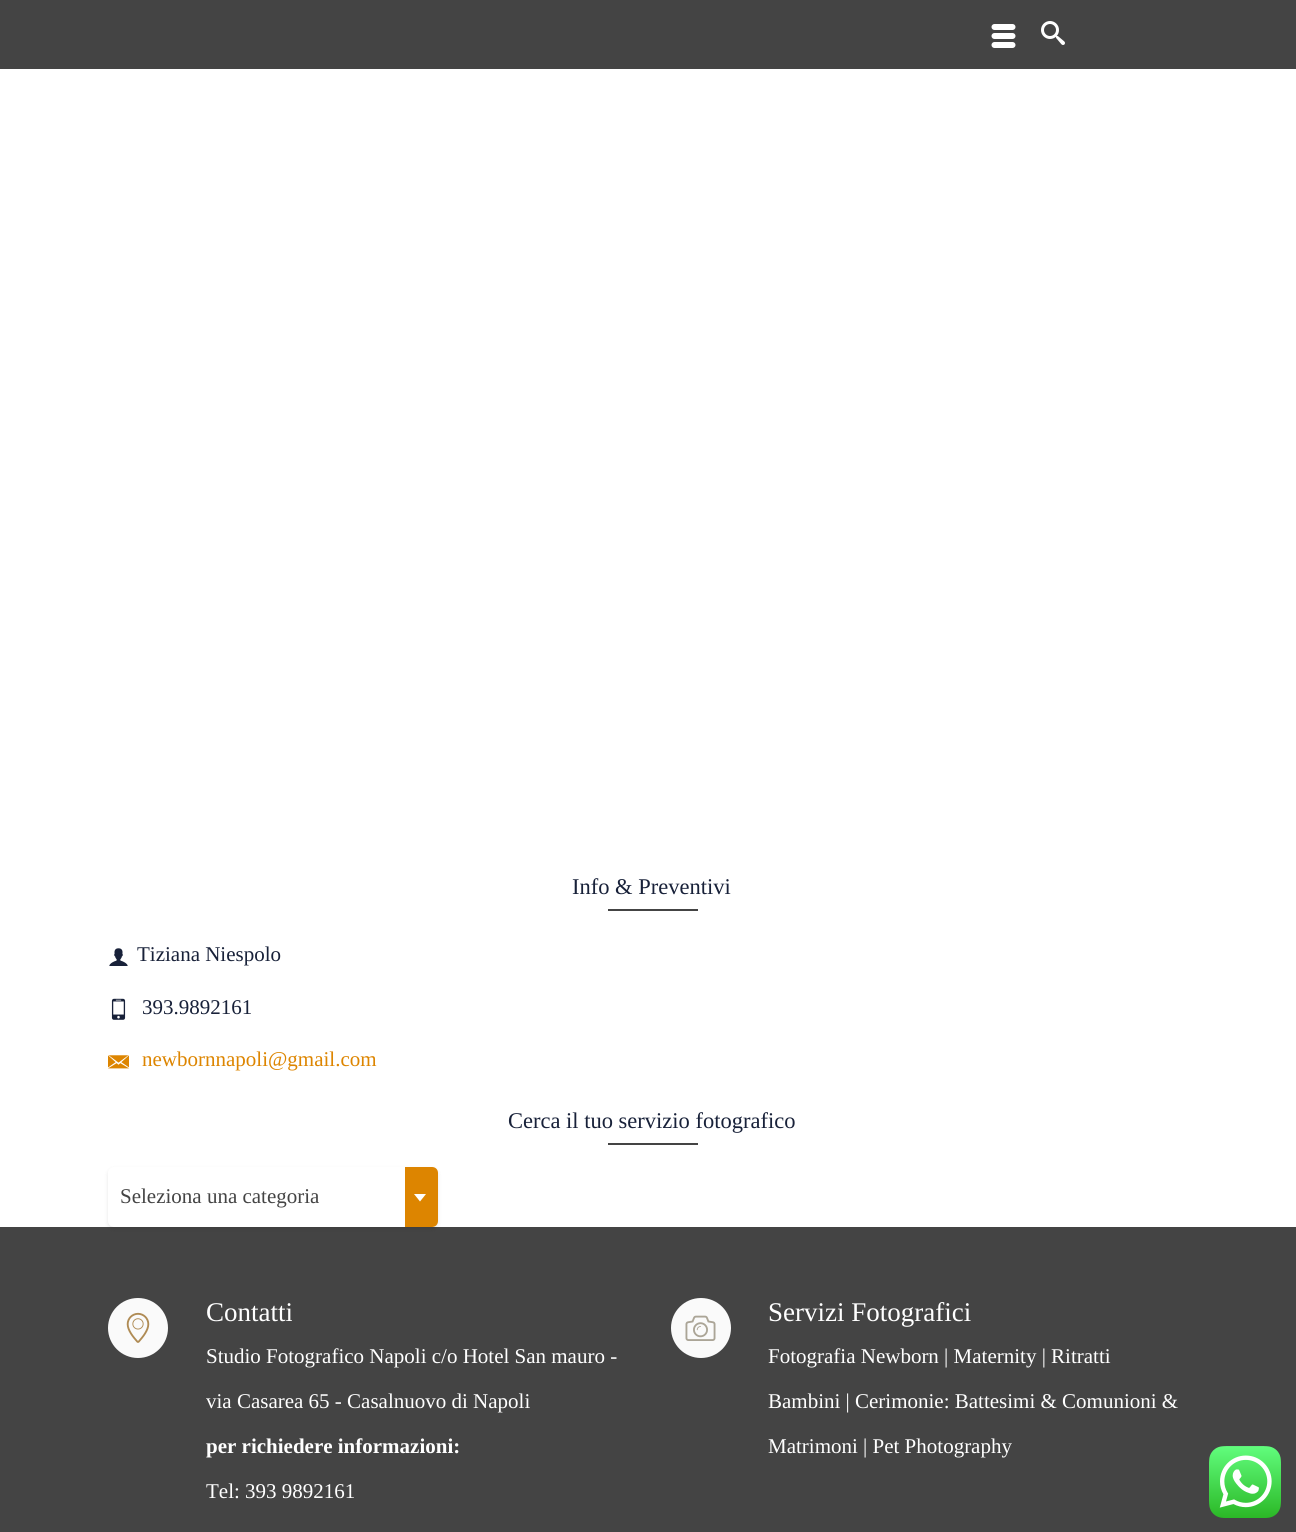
#include <cairo.h>
#include <math.h>
#include <stddef.h>

static cairo_t *ctx;

static void use_color(int r, int g, int b) {
    cairo_set_source_rgb(ctx, r / 255.0, g / 255.0, b / 255.0);
}

static void round_rect(double x, double y, double w, double h, double r) {
    cairo_new_sub_path(ctx);
    cairo_arc(ctx, x + w - r, y + h - r, r, 0, M_PI / 2);
    cairo_arc(ctx, x + r, y + h - r, r, M_PI / 2, M_PI);
    cairo_arc(ctx, x + r, y + r, r, M_PI, 1.5 * M_PI);
    cairo_arc(ctx, x + w - r, y + r, r, 1.5 * M_PI, 2 * M_PI);
    cairo_close_path(ctx);
}

static void shadow(double x, double y, double w, double h, double r, double blur, double alpha) {
    cairo_push_group_with_content(ctx, CAIRO_CONTENT_ALPHA);
    cairo_set_operator(ctx, CAIRO_OPERATOR_SOURCE);
    for (int i = 15; i >= -15 && fmin(w, h) + blur * i / 3 > 0; i -= 2) {
        double e = blur * i / 6;
        cairo_set_source_rgba(ctx, 0, 0, 0, alpha * erfc((i - 1) / 8.5) / 2);
        round_rect(x - e, y - e, w + 2 * e, h + 2 * e, fmax(0, fmin(r + e + blur * .6, fmin(w, h) / 2 + e)));
        cairo_fill(ctx);
    }
    cairo_pattern_t *soft = cairo_pop_group(ctx);
    cairo_mask(ctx, soft);
    cairo_pattern_destroy(soft);
}

static void picture(const char *path, double x, double y, double w, double h) {
    cairo_surface_t *image = cairo_image_surface_create_from_png(path);
    cairo_save(ctx);
    cairo_set_source_surface(ctx, image, x, y);
    cairo_rectangle(ctx, x, y, w, h);
    cairo_fill(ctx);
    cairo_restore(ctx);
    cairo_surface_destroy(image);
}

int main(void) {
    cairo_surface_t *surface = cairo_image_surface_create(CAIRO_FORMAT_RGB24, 1296, 1532);
    ctx = cairo_create(surface);
    cairo_font_options_t *options = cairo_font_options_create();
    cairo_font_options_set_hint_metrics(options, CAIRO_HINT_METRICS_OFF);
    cairo_font_options_set_hint_style(options, CAIRO_HINT_STYLE_NONE);
    cairo_set_font_options(ctx, options);
    cairo_set_miter_limit(ctx, 4);
    use_color(255, 255, 255);
    cairo_paint(ctx);
    use_color(68, 68, 68);
    cairo_rectangle(ctx, 0, 0, 1296, 69);
    cairo_fill(ctx);
    picture("img1.png", 991, 24, 25, 24);
    picture("img2.png", 1041, 21, 24, 24);
    cairo_select_font_face(ctx, "Liberation Serif", CAIRO_FONT_SLANT_NORMAL, CAIRO_FONT_WEIGHT_NORMAL);
    cairo_set_font_size(ctx, 22.5);
    use_color(24, 33, 57);
    cairo_move_to(ctx, 572, 894);
    cairo_show_text(ctx, "Info & Preventivi");
    use_color(68, 68, 68);
    cairo_rectangle(ctx, 608, 909, 90, 2);
    cairo_fill(ctx);
    picture("img3.png", 109, 948, 19, 18);
    cairo_set_font_size(ctx, 21);
    use_color(24, 33, 57);
    cairo_move_to(ctx, 137, 961);
    cairo_show_text(ctx, "Tiziana Niespolo");
    picture("img4.png", 111, 998, 15, 22);
    cairo_move_to(ctx, 142, 1014);
    cairo_show_text(ctx, "393.9892161");
    picture("img5.png", 108, 1055, 21, 14);
    use_color(221, 133, 0);
    cairo_move_to(ctx, 142, 1066);
    cairo_show_text(ctx, "newbornnapoli@gmail.com");
    cairo_set_font_size(ctx, 22.5);
    use_color(24, 33, 57);
    cairo_move_to(ctx, 508, 1128);
    cairo_show_text(ctx, "Cerca il tuo servizio fotografico");
    use_color(68, 68, 68);
    cairo_rectangle(ctx, 608, 1143, 90, 2);
    cairo_fill(ctx);
    cairo_rectangle(ctx, 0, 1227, 1296, 305);
    cairo_fill(ctx);
    use_color(0, 0, 0);
    shadow(108, 1169, 330, 60, 6, 2, 0.1);
    use_color(255, 255, 255);
    round_rect(108, 1167, 330, 60, 6);
    cairo_fill(ctx);
    cairo_set_font_size(ctx, 21);
    use_color(68, 68, 68);
    cairo_move_to(ctx, 120, 1203);
    cairo_show_text(ctx, "Seleziona una categoria");
    use_color(221, 133, 0);
    cairo_new_path(ctx);
    cairo_move_to(ctx, 405, 1167);
    cairo_line_to(ctx, 432, 1167);
    cairo_curve_to(ctx, 435.5, 1167, 438, 1169.5, 438, 1173);
    cairo_line_to(ctx, 438, 1221);
    cairo_curve_to(ctx, 438, 1224.5, 435.5, 1227, 432, 1227);
    cairo_line_to(ctx, 405, 1227);
    cairo_close_path(ctx);
    cairo_fill(ctx);
    use_color(255, 255, 255);
    cairo_new_path(ctx);
    cairo_move_to(ctx, 414, 1194);
    cairo_line_to(ctx, 426, 1194);
    cairo_line_to(ctx, 420, 1201.5);
    cairo_close_path(ctx);
    cairo_fill(ctx);
    use_color(250, 250, 250);
    cairo_arc(ctx, 138, 1328, 30, 0, 2 * M_PI);
    cairo_fill(ctx);
    picture("img6.png", 126, 1312, 24, 31);
    cairo_set_font_size(ctx, 27);
    use_color(255, 255, 255);
    cairo_move_to(ctx, 206, 1321);
    cairo_show_text(ctx, "Contatti");
    cairo_set_font_size(ctx, 21);
    cairo_move_to(ctx, 206, 1363);
    cairo_show_text(ctx, "Studio Fotografico Napoli c/o Hotel San mauro -");
    cairo_move_to(ctx, 206, 1408);
    cairo_show_text(ctx, "via Casarea 65 - Casalnuovo di Napoli");
    cairo_select_font_face(ctx, "Liberation Serif", CAIRO_FONT_SLANT_NORMAL, CAIRO_FONT_WEIGHT_BOLD);
    cairo_move_to(ctx, 206, 1453);
    cairo_show_text(ctx, "per richiedere informazioni:");
    cairo_select_font_face(ctx, "Liberation Serif", CAIRO_FONT_SLANT_NORMAL, CAIRO_FONT_WEIGHT_NORMAL);
    cairo_move_to(ctx, 206, 1498);
    cairo_show_text(ctx, "Tel: 393 9892161");
    use_color(250, 250, 250);
    cairo_new_path(ctx);
    cairo_arc(ctx, 701, 1328, 30, 0, 2 * M_PI);
    cairo_fill(ctx);
    picture("img7.png", 685, 1315, 31, 26);
    cairo_set_font_size(ctx, 27);
    use_color(255, 255, 255);
    cairo_move_to(ctx, 768, 1321);
    cairo_show_text(ctx, "Servizi Fotografici");
    cairo_set_font_size(ctx, 21);
    cairo_move_to(ctx, 768, 1363);
    cairo_show_text(ctx, "Fotografia Newborn | Maternity | Ritratti");
    cairo_move_to(ctx, 768, 1408);
    cairo_show_text(ctx, "Bambini | Cerimonie: Battesimi & Comunioni &");
    cairo_move_to(ctx, 768, 1453);
    cairo_show_text(ctx, "Matrimoni | Pet Photography");
    picture("img8.png", 1209, 1446, 72, 72);
    cairo_surface_write_to_png(surface, "result.png");
    cairo_font_options_destroy(options);
    cairo_destroy(ctx);
    cairo_surface_destroy(surface);
    return 0;
}
